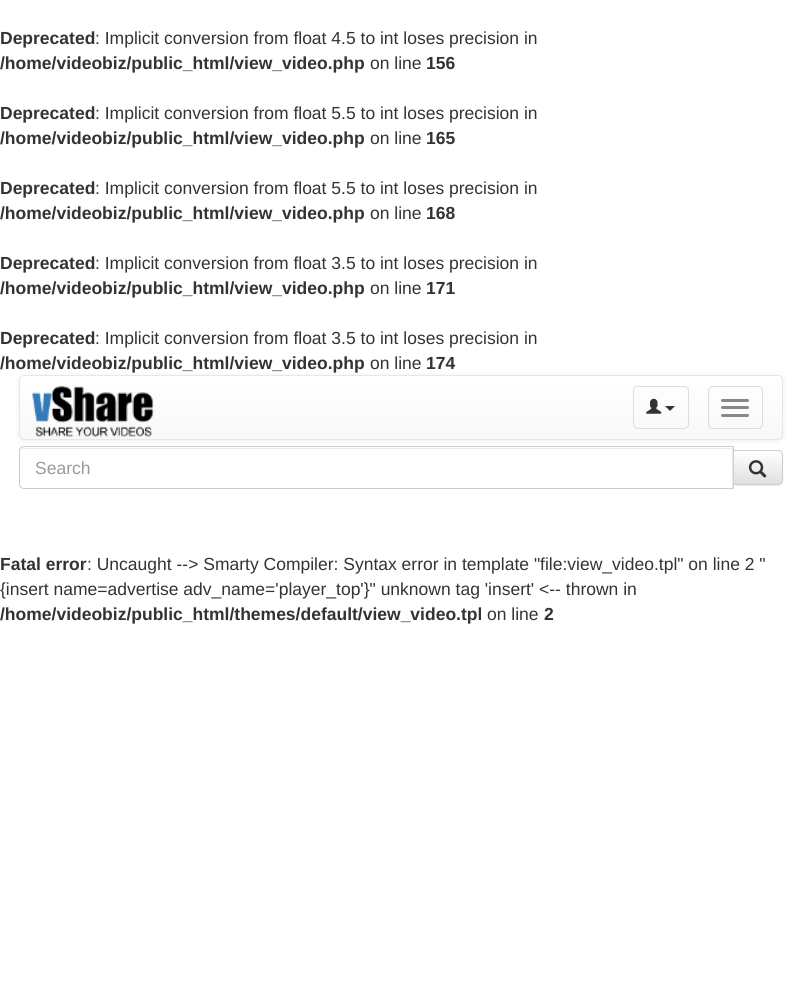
#include <cairo.h>
#include <math.h>
#include <stddef.h>

static cairo_t *ctx;

static void use_color(int r, int g, int b) {
    cairo_set_source_rgb(ctx, r / 255.0, g / 255.0, b / 255.0);
}

static void round_rect(double x, double y, double w, double h, double r) {
    cairo_new_sub_path(ctx);
    cairo_arc(ctx, x + w - r, y + h - r, r, 0, M_PI / 2);
    cairo_arc(ctx, x + r, y + h - r, r, M_PI / 2, M_PI);
    cairo_arc(ctx, x + r, y + r, r, M_PI, 1.5 * M_PI);
    cairo_arc(ctx, x + w - r, y + r, r, 1.5 * M_PI, 2 * M_PI);
    cairo_close_path(ctx);
}

static void shadow(double x, double y, double w, double h, double r, double blur, double alpha) {
    cairo_push_group_with_content(ctx, CAIRO_CONTENT_ALPHA);
    cairo_set_operator(ctx, CAIRO_OPERATOR_SOURCE);
    for (int i = 15; i >= -15 && fmin(w, h) + blur * i / 3 > 0; i -= 2) {
        double e = blur * i / 6;
        cairo_set_source_rgba(ctx, 0, 0, 0, alpha * erfc((i - 1) / 8.5) / 2);
        round_rect(x - e, y - e, w + 2 * e, h + 2 * e, fmax(0, fmin(r + e + blur * .6, fmin(w, h) / 2 + e)));
        cairo_fill(ctx);
    }
    cairo_pattern_t *soft = cairo_pop_group(ctx);
    cairo_mask(ctx, soft);
    cairo_pattern_destroy(soft);
}

static void picture(const char *path, double x, double y, double w, double h) {
    cairo_surface_t *image = cairo_image_surface_create_from_png(path);
    cairo_save(ctx);
    cairo_set_source_surface(ctx, image, x, y);
    cairo_rectangle(ctx, x, y, w, h);
    cairo_fill(ctx);
    cairo_restore(ctx);
    cairo_surface_destroy(image);
}

int main(void) {
    cairo_surface_t *surface = cairo_image_surface_create(CAIRO_FORMAT_RGB24, 801, 988);
    ctx = cairo_create(surface);
    cairo_font_options_t *options = cairo_font_options_create();
    cairo_font_options_set_hint_metrics(options, CAIRO_HINT_METRICS_OFF);
    cairo_font_options_set_hint_style(options, CAIRO_HINT_STYLE_NONE);
    cairo_set_font_options(ctx, options);
    cairo_set_miter_limit(ctx, 4);
    cairo_pattern_t *gradient;
    use_color(255, 255, 255);
    cairo_paint(ctx);
    cairo_select_font_face(ctx, "Liberation Sans", CAIRO_FONT_SLANT_NORMAL, CAIRO_FONT_WEIGHT_BOLD);
    cairo_set_font_size(ctx, 17.5);
    use_color(51, 51, 51);
    cairo_move_to(ctx, 0, 44);
    cairo_show_text(ctx, "Deprecated");
    cairo_select_font_face(ctx, "Liberation Sans", CAIRO_FONT_SLANT_NORMAL, CAIRO_FONT_WEIGHT_NORMAL);
    cairo_move_to(ctx, 95, 44);
    cairo_show_text(ctx, ": Implicit conversion from float 4.5 to int loses precision in");
    cairo_select_font_face(ctx, "Liberation Sans", CAIRO_FONT_SLANT_NORMAL, CAIRO_FONT_WEIGHT_BOLD);
    cairo_move_to(ctx, 0, 69);
    cairo_show_text(ctx, "/home/videobiz/public_html/view_video.php");
    cairo_select_font_face(ctx, "Liberation Sans", CAIRO_FONT_SLANT_NORMAL, CAIRO_FONT_WEIGHT_NORMAL);
    cairo_move_to(ctx, 370, 69);
    cairo_show_text(ctx, "on line");
    cairo_select_font_face(ctx, "Liberation Sans", CAIRO_FONT_SLANT_NORMAL, CAIRO_FONT_WEIGHT_BOLD);
    cairo_move_to(ctx, 426, 69);
    cairo_show_text(ctx, "156");
    cairo_move_to(ctx, 0, 119);
    cairo_show_text(ctx, "Deprecated");
    cairo_select_font_face(ctx, "Liberation Sans", CAIRO_FONT_SLANT_NORMAL, CAIRO_FONT_WEIGHT_NORMAL);
    cairo_move_to(ctx, 95, 119);
    cairo_show_text(ctx, ": Implicit conversion from float 5.5 to int loses precision in");
    cairo_select_font_face(ctx, "Liberation Sans", CAIRO_FONT_SLANT_NORMAL, CAIRO_FONT_WEIGHT_BOLD);
    cairo_move_to(ctx, 0, 144);
    cairo_show_text(ctx, "/home/videobiz/public_html/view_video.php");
    cairo_select_font_face(ctx, "Liberation Sans", CAIRO_FONT_SLANT_NORMAL, CAIRO_FONT_WEIGHT_NORMAL);
    cairo_move_to(ctx, 370, 144);
    cairo_show_text(ctx, "on line");
    cairo_select_font_face(ctx, "Liberation Sans", CAIRO_FONT_SLANT_NORMAL, CAIRO_FONT_WEIGHT_BOLD);
    cairo_move_to(ctx, 426, 144);
    cairo_show_text(ctx, "165");
    cairo_move_to(ctx, 0, 194);
    cairo_show_text(ctx, "Deprecated");
    cairo_select_font_face(ctx, "Liberation Sans", CAIRO_FONT_SLANT_NORMAL, CAIRO_FONT_WEIGHT_NORMAL);
    cairo_move_to(ctx, 95, 194);
    cairo_show_text(ctx, ": Implicit conversion from float 5.5 to int loses precision in");
    cairo_select_font_face(ctx, "Liberation Sans", CAIRO_FONT_SLANT_NORMAL, CAIRO_FONT_WEIGHT_BOLD);
    cairo_move_to(ctx, 0, 219);
    cairo_show_text(ctx, "/home/videobiz/public_html/view_video.php");
    cairo_select_font_face(ctx, "Liberation Sans", CAIRO_FONT_SLANT_NORMAL, CAIRO_FONT_WEIGHT_NORMAL);
    cairo_move_to(ctx, 370, 219);
    cairo_show_text(ctx, "on line");
    cairo_select_font_face(ctx, "Liberation Sans", CAIRO_FONT_SLANT_NORMAL, CAIRO_FONT_WEIGHT_BOLD);
    cairo_move_to(ctx, 426, 219);
    cairo_show_text(ctx, "168");
    cairo_move_to(ctx, 0, 269);
    cairo_show_text(ctx, "Deprecated");
    cairo_select_font_face(ctx, "Liberation Sans", CAIRO_FONT_SLANT_NORMAL, CAIRO_FONT_WEIGHT_NORMAL);
    cairo_move_to(ctx, 95, 269);
    cairo_show_text(ctx, ": Implicit conversion from float 3.5 to int loses precision in");
    cairo_select_font_face(ctx, "Liberation Sans", CAIRO_FONT_SLANT_NORMAL, CAIRO_FONT_WEIGHT_BOLD);
    cairo_move_to(ctx, 0, 294);
    cairo_show_text(ctx, "/home/videobiz/public_html/view_video.php");
    cairo_select_font_face(ctx, "Liberation Sans", CAIRO_FONT_SLANT_NORMAL, CAIRO_FONT_WEIGHT_NORMAL);
    cairo_move_to(ctx, 370, 294);
    cairo_show_text(ctx, "on line");
    cairo_select_font_face(ctx, "Liberation Sans", CAIRO_FONT_SLANT_NORMAL, CAIRO_FONT_WEIGHT_BOLD);
    cairo_move_to(ctx, 426, 294);
    cairo_show_text(ctx, "171");
    cairo_move_to(ctx, 0, 344);
    cairo_show_text(ctx, "Deprecated");
    cairo_select_font_face(ctx, "Liberation Sans", CAIRO_FONT_SLANT_NORMAL, CAIRO_FONT_WEIGHT_NORMAL);
    cairo_move_to(ctx, 95, 344);
    cairo_show_text(ctx, ": Implicit conversion from float 3.5 to int loses precision in");
    cairo_select_font_face(ctx, "Liberation Sans", CAIRO_FONT_SLANT_NORMAL, CAIRO_FONT_WEIGHT_BOLD);
    cairo_move_to(ctx, 0, 369);
    cairo_show_text(ctx, "/home/videobiz/public_html/view_video.php");
    cairo_select_font_face(ctx, "Liberation Sans", CAIRO_FONT_SLANT_NORMAL, CAIRO_FONT_WEIGHT_NORMAL);
    cairo_move_to(ctx, 370, 369);
    cairo_show_text(ctx, "on line");
    cairo_select_font_face(ctx, "Liberation Sans", CAIRO_FONT_SLANT_NORMAL, CAIRO_FONT_WEIGHT_BOLD);
    cairo_move_to(ctx, 426, 369);
    cairo_show_text(ctx, "174");
    use_color(0, 0, 0);
    shadow(19, 376, 764, 65, 5, 3, 0.07);
    cairo_save(ctx);
    round_rect(19, 375, 764, 65, 5);
    cairo_clip(ctx);
    gradient = cairo_pattern_create_linear(401, 376, 401, 439);
    cairo_pattern_add_color_stop_rgba(gradient, 0, 1, 1, 1, 1);
    cairo_pattern_add_color_stop_rgba(gradient, 1, 0.973, 0.973, 0.973, 1);
    cairo_set_source(ctx, gradient);
    cairo_pattern_destroy(gradient);
    cairo_rectangle(ctx, 19, 376, 764, 63);
    cairo_fill(ctx);
    cairo_restore(ctx);
    round_rect(19.5, 375.5, 763, 64, 4.5);
    use_color(231, 231, 231);
    cairo_set_line_width(ctx, 1);
    cairo_stroke(ctx);
    picture("img1.png", 31, 386, 123, 51);
    round_rect(633.5, 386.5, 55, 42, 4.5);
    use_color(221, 221, 221);
    cairo_stroke(ctx);
    picture("img2.png", 646, 398, 16, 16);
    use_color(51, 51, 51);
    cairo_new_path(ctx);
    cairo_move_to(ctx, 665, 406);
    cairo_line_to(ctx, 675, 406);
    cairo_line_to(ctx, 670, 411);
    cairo_close_path(ctx);
    cairo_fill(ctx);
    round_rect(708.5, 386.5, 54, 42, 4.5);
    use_color(221, 221, 221);
    cairo_stroke(ctx);
    use_color(136, 136, 136);
    round_rect(721, 399, 28, 3, 1.5);
    cairo_fill(ctx);
    round_rect(721, 406, 28, 3, 1.5);
    cairo_fill(ctx);
    round_rect(721, 414, 28, 3, 1.5);
    cairo_fill(ctx);
    use_color(0, 0, 0);
    shadow(733, 451, 50, 35, 5, 0.5, 0.07);
    cairo_save(ctx);
    cairo_new_path(ctx);
    cairo_move_to(ctx, 733, 450);
    cairo_line_to(ctx, 778, 450);
    cairo_curve_to(ctx, 781, 450, 783, 452, 783, 455);
    cairo_line_to(ctx, 783, 480);
    cairo_curve_to(ctx, 783, 483, 781, 485, 778, 485);
    cairo_line_to(ctx, 733, 485);
    cairo_close_path(ctx);
    cairo_clip(ctx);
    gradient = cairo_pattern_create_linear(758, 451, 758, 484);
    cairo_pattern_add_color_stop_rgba(gradient, 0, 1, 1, 1, 1);
    cairo_pattern_add_color_stop_rgba(gradient, 1, 0.878, 0.878, 0.878, 1);
    cairo_set_source(ctx, gradient);
    cairo_pattern_destroy(gradient);
    cairo_rectangle(ctx, 734, 451, 49, 33);
    cairo_fill(ctx);
    cairo_restore(ctx);
    cairo_new_path(ctx);
    cairo_move_to(ctx, 733.5, 450.5);
    cairo_line_to(ctx, 778, 450.5);
    cairo_curve_to(ctx, 780.5, 450.5, 782.5, 452.5, 782.5, 455);
    cairo_line_to(ctx, 782.5, 480);
    cairo_curve_to(ctx, 782.5, 482.5, 780.5, 484.5, 778, 484.5);
    cairo_line_to(ctx, 733.5, 484.5);
    cairo_close_path(ctx);
    use_color(204, 204, 204);
    cairo_stroke(ctx);
    use_color(255, 255, 255);
    cairo_new_path(ctx);
    cairo_move_to(ctx, 24, 446);
    cairo_line_to(ctx, 734, 446);
    cairo_line_to(ctx, 734, 489);
    cairo_line_to(ctx, 24, 489);
    cairo_curve_to(ctx, 21, 489, 19, 487, 19, 484);
    cairo_line_to(ctx, 19, 451);
    cairo_curve_to(ctx, 19, 448, 21, 446, 24, 446);
    cairo_close_path(ctx);
    cairo_fill(ctx);
    use_color(236, 236, 236);
    cairo_new_path(ctx);
    cairo_move_to(ctx, 24, 449);
    cairo_line_to(ctx, 732, 449);
    cairo_line_to(ctx, 732, 488);
    cairo_line_to(ctx, 733, 488);
    cairo_line_to(ctx, 733, 448);
    cairo_line_to(ctx, 24, 448);
    cairo_curve_to(ctx, 22, 448, 20, 450, 20, 452);
    cairo_curve_to(ctx, 20, 450, 22, 449, 24, 449);
    cairo_close_path(ctx);
    cairo_fill(ctx);
    cairo_new_path(ctx);
    cairo_move_to(ctx, 24, 446.5);
    cairo_line_to(ctx, 733.5, 446.5);
    cairo_line_to(ctx, 733.5, 488.5);
    cairo_line_to(ctx, 24, 488.5);
    cairo_curve_to(ctx, 21.5, 488.5, 19.5, 486.5, 19.5, 484);
    cairo_line_to(ctx, 19.5, 451);
    cairo_curve_to(ctx, 19.5, 448.5, 21.5, 446.5, 24, 446.5);
    cairo_close_path(ctx);
    use_color(204, 204, 204);
    cairo_stroke(ctx);
    cairo_select_font_face(ctx, "Liberation Sans", CAIRO_FONT_SLANT_NORMAL, CAIRO_FONT_WEIGHT_NORMAL);
    use_color(153, 153, 153);
    cairo_move_to(ctx, 35, 474);
    cairo_show_text(ctx, "Search");
    picture("img3.png", 748, 460, 19, 18);
    cairo_select_font_face(ctx, "Liberation Sans", CAIRO_FONT_SLANT_NORMAL, CAIRO_FONT_WEIGHT_BOLD);
    use_color(51, 51, 51);
    cairo_move_to(ctx, 0, 570);
    cairo_show_text(ctx, "Fatal error");
    cairo_select_font_face(ctx, "Liberation Sans", CAIRO_FONT_SLANT_NORMAL, CAIRO_FONT_WEIGHT_NORMAL);
    cairo_move_to(ctx, 87, 570);
    cairo_show_text(ctx, ": Uncaught --> Smarty Compiler: Syntax error in template \"file:view_video.tpl\" on line 2 \"");
    cairo_move_to(ctx, 0, 595);
    cairo_show_text(ctx, "{insert name=advertise adv_name='player_top'}\" unknown tag 'insert' <-- thrown in");
    cairo_select_font_face(ctx, "Liberation Sans", CAIRO_FONT_SLANT_NORMAL, CAIRO_FONT_WEIGHT_BOLD);
    cairo_move_to(ctx, 0, 620);
    cairo_show_text(ctx, "/home/videobiz/public_html/themes/default/view_video.tpl");
    cairo_select_font_face(ctx, "Liberation Sans", CAIRO_FONT_SLANT_NORMAL, CAIRO_FONT_WEIGHT_NORMAL);
    cairo_move_to(ctx, 487, 620);
    cairo_show_text(ctx, "on line");
    cairo_select_font_face(ctx, "Liberation Sans", CAIRO_FONT_SLANT_NORMAL, CAIRO_FONT_WEIGHT_BOLD);
    cairo_move_to(ctx, 544, 620);
    cairo_show_text(ctx, "2");
    cairo_surface_write_to_png(surface, "result.png");
    cairo_font_options_destroy(options);
    cairo_destroy(ctx);
    cairo_surface_destroy(surface);
    return 0;
}
